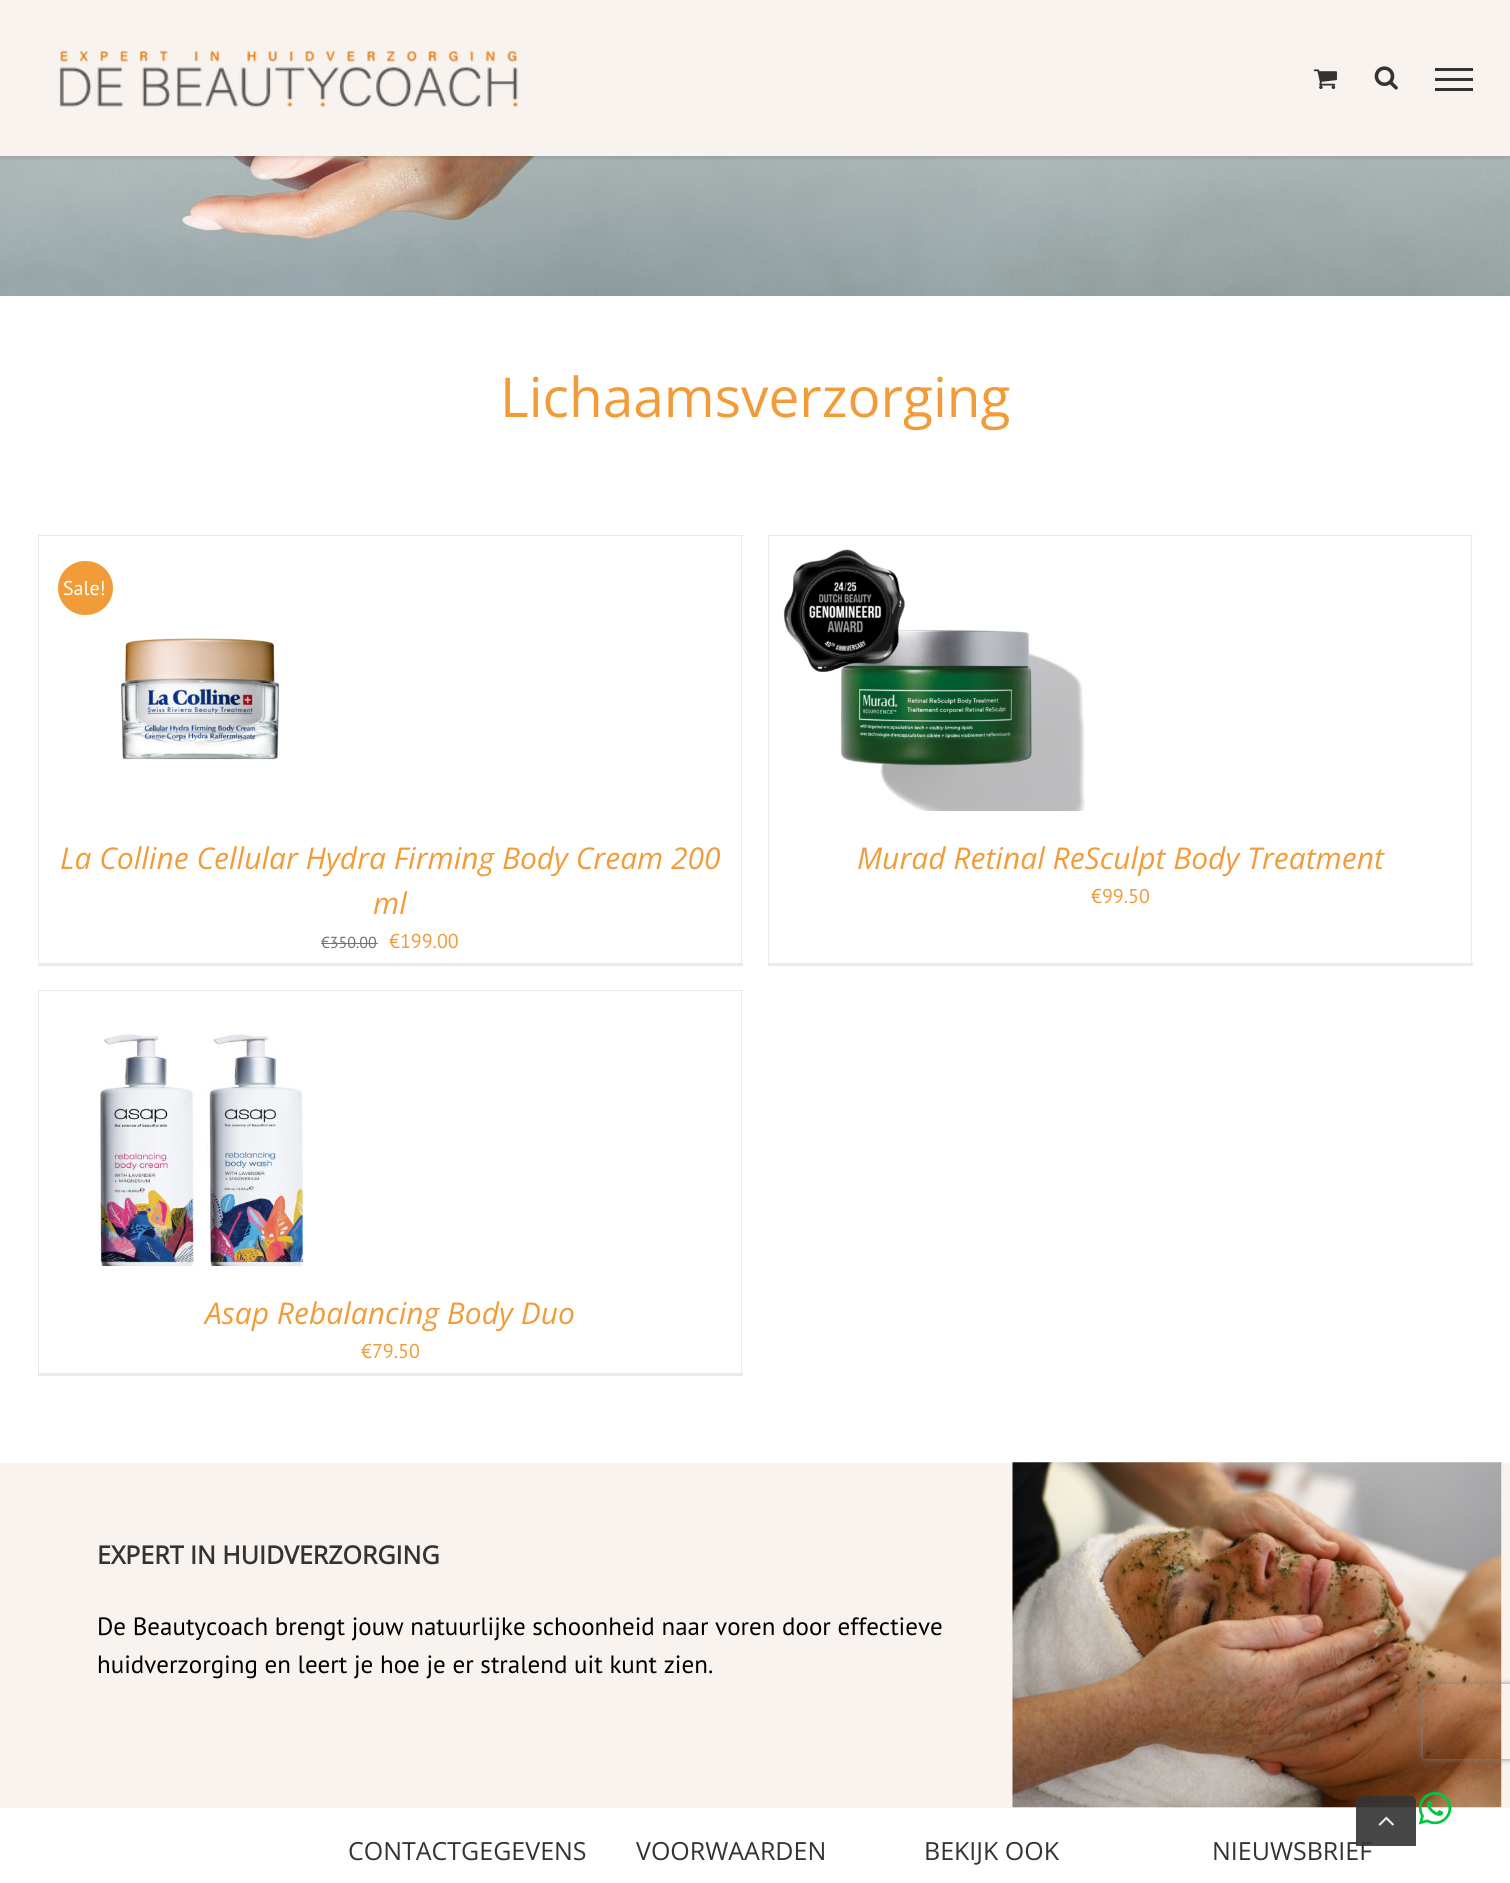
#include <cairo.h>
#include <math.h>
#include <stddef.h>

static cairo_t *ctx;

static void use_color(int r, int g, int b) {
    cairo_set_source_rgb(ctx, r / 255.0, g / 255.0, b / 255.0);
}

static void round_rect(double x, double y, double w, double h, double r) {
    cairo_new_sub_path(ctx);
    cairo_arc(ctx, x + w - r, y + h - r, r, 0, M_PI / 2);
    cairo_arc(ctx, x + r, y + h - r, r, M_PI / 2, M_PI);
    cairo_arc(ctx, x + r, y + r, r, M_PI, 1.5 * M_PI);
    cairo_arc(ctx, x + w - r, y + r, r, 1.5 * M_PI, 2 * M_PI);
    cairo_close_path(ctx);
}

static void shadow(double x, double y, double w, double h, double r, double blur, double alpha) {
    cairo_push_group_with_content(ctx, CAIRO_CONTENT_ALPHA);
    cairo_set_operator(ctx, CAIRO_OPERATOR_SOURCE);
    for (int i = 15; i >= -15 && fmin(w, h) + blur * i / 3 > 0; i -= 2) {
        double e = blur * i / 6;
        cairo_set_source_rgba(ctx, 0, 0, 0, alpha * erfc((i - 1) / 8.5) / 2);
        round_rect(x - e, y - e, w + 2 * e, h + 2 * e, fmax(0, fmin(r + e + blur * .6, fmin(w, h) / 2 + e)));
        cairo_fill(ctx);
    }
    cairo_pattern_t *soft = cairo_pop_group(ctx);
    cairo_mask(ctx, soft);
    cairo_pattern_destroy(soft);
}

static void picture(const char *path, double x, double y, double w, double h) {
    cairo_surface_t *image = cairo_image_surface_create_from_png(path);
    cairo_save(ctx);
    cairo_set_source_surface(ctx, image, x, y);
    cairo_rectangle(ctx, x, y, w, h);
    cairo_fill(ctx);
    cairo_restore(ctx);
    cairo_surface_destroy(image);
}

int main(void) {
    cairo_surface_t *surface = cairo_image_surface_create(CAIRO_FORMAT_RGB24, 1510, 1883);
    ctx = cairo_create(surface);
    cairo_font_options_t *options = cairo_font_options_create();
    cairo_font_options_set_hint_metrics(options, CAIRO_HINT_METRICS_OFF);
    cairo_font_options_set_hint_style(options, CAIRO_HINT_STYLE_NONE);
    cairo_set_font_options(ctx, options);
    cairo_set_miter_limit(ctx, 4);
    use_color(255, 255, 255);
    cairo_paint(ctx);
    picture("img4.png", 0, 156, 1510, 140);
    use_color(0, 0, 0);
    shadow(0, 1, 1510, 157, 0, 2, 0.12);
    use_color(248, 243, 239);
    cairo_rectangle(ctx, 0, 0, 1510, 156);
    cairo_fill(ctx);
    picture("img1.png", 59, 51, 459, 57);
    picture("img2.png", 1313, 69, 24, 20);
    picture("img3.png", 1374, 66, 24, 24);
    use_color(51, 51, 51);
    cairo_rectangle(ctx, 1435, 68, 38, 3);
    cairo_fill(ctx);
    cairo_rectangle(ctx, 1435, 78, 38, 3);
    cairo_fill(ctx);
    cairo_rectangle(ctx, 1435, 88, 38, 3);
    cairo_fill(ctx);
    cairo_select_font_face(ctx, "Open Sans", CAIRO_FONT_SLANT_NORMAL, CAIRO_FONT_WEIGHT_NORMAL);
    cairo_set_font_size(ctx, 55);
    use_color(242, 156, 57);
    cairo_move_to(ctx, 500, 417);
    cairo_show_text(ctx, "Lichaamsverzorging");
    use_color(235, 234, 234);
    cairo_rectangle(ctx, 38, 535, 705, 1);
    cairo_fill(ctx);
    cairo_rectangle(ctx, 741, 535, 1, 430);
    cairo_fill(ctx);
    cairo_rectangle(ctx, 38, 963, 705, 3);
    cairo_fill(ctx);
    cairo_rectangle(ctx, 38, 535, 1, 430);
    cairo_fill(ctx);
    use_color(242, 156, 57);
    round_rect(58, 561, 55, 54, 27);
    cairo_fill(ctx);
    cairo_select_font_face(ctx, "PT Sans", CAIRO_FONT_SLANT_NORMAL, CAIRO_FONT_WEIGHT_NORMAL);
    cairo_set_font_size(ctx, 20);
    use_color(255, 255, 255);
    cairo_move_to(ctx, 63, 595);
    cairo_show_text(ctx, "Sale!");
    picture("img5.png", 120, 638, 160, 122);
    cairo_select_font_face(ctx, "Open Sans", CAIRO_FONT_SLANT_ITALIC, CAIRO_FONT_WEIGHT_NORMAL);
    cairo_set_font_size(ctx, 30);
    use_color(242, 156, 57);
    cairo_move_to(ctx, 60, 869);
    cairo_show_text(ctx, "La Colline Cellular Hydra Firming Body Cream 200");
    cairo_move_to(ctx, 373, 914);
    cairo_show_text(ctx, "ml");
    cairo_select_font_face(ctx, "PT Sans", CAIRO_FONT_SLANT_NORMAL, CAIRO_FONT_WEIGHT_NORMAL);
    cairo_set_font_size(ctx, 16);
    use_color(116, 116, 116);
    cairo_move_to(ctx, 321, 948);
    cairo_show_text(ctx, "€350.00");
    cairo_rectangle(ctx, 321, 943, 57, 1);
    cairo_fill(ctx);
    cairo_set_font_size(ctx, 20);
    use_color(242, 156, 57);
    cairo_move_to(ctx, 389, 948);
    cairo_show_text(ctx, "€199.00");
    use_color(235, 234, 234);
    cairo_rectangle(ctx, 768, 535, 705, 1);
    cairo_fill(ctx);
    cairo_rectangle(ctx, 1471, 535, 1, 430);
    cairo_fill(ctx);
    cairo_rectangle(ctx, 768, 963, 705, 3);
    cairo_fill(ctx);
    cairo_rectangle(ctx, 768, 535, 1, 430);
    cairo_fill(ctx);
    picture("img6.png", 783, 549, 302, 262);
    cairo_select_font_face(ctx, "Open Sans", CAIRO_FONT_SLANT_ITALIC, CAIRO_FONT_WEIGHT_NORMAL);
    cairo_set_font_size(ctx, 30);
    use_color(242, 156, 57);
    cairo_move_to(ctx, 857, 869);
    cairo_show_text(ctx, "Murad Retinal ReSculpt Body Treatment");
    cairo_select_font_face(ctx, "PT Sans", CAIRO_FONT_SLANT_NORMAL, CAIRO_FONT_WEIGHT_NORMAL);
    cairo_set_font_size(ctx, 20);
    cairo_move_to(ctx, 1091, 903);
    cairo_show_text(ctx, "€99.50");
    use_color(235, 234, 234);
    cairo_rectangle(ctx, 38, 990, 705, 1);
    cairo_fill(ctx);
    cairo_rectangle(ctx, 741, 990, 1, 385);
    cairo_fill(ctx);
    cairo_rectangle(ctx, 38, 1373, 705, 3);
    cairo_fill(ctx);
    cairo_rectangle(ctx, 38, 990, 1, 385);
    cairo_fill(ctx);
    picture("img7.png", 97, 1033, 207, 233);
    cairo_select_font_face(ctx, "Open Sans", CAIRO_FONT_SLANT_ITALIC, CAIRO_FONT_WEIGHT_NORMAL);
    cairo_set_font_size(ctx, 30);
    use_color(242, 156, 57);
    cairo_move_to(ctx, 205, 1324);
    cairo_show_text(ctx, "Asap Rebalancing Body Duo");
    cairo_select_font_face(ctx, "PT Sans", CAIRO_FONT_SLANT_NORMAL, CAIRO_FONT_WEIGHT_NORMAL);
    cairo_set_font_size(ctx, 20);
    cairo_move_to(ctx, 361, 1358);
    cairo_show_text(ctx, "€79.50");
    use_color(248, 243, 239);
    cairo_rectangle(ctx, 0, 1463, 1510, 345);
    cairo_fill(ctx);
    cairo_select_font_face(ctx, "Open Sans", CAIRO_FONT_SLANT_NORMAL, CAIRO_FONT_WEIGHT_BOLD);
    cairo_set_font_size(ctx, 25);
    use_color(51, 51, 51);
    cairo_move_to(ctx, 97, 1564);
    cairo_show_text(ctx, "EXPERT IN HUIDVERZORGING");
    cairo_select_font_face(ctx, "PT Sans", CAIRO_FONT_SLANT_NORMAL, CAIRO_FONT_WEIGHT_NORMAL);
    use_color(0, 0, 0);
    cairo_move_to(ctx, 97, 1635);
    cairo_show_text(ctx, "De Beautycoach brengt jouw natuurlijke schoonheid naar voren door effectieve");
    cairo_move_to(ctx, 97, 1673);
    cairo_show_text(ctx, "huidverzorging en leert je hoe je er stralend uit kunt zien.");
    picture("img8.png", 1012, 1462, 490, 346);
    cairo_select_font_face(ctx, "Open Sans", CAIRO_FONT_SLANT_NORMAL, CAIRO_FONT_WEIGHT_NORMAL);
    use_color(51, 51, 51);
    cairo_move_to(ctx, 348, 1860);
    cairo_show_text(ctx, "CONTACTGEGEVENS");
    cairo_move_to(ctx, 636, 1860);
    cairo_show_text(ctx, "VOORWAARDEN");
    cairo_move_to(ctx, 924, 1860);
    cairo_show_text(ctx, "BEKIJK OOK");
    cairo_move_to(ctx, 1212, 1860);
    cairo_show_text(ctx, "NIEUWSBRIEF");
    cairo_save(ctx);
    cairo_set_fill_rule(ctx, CAIRO_FILL_RULE_EVEN_ODD);
    cairo_new_path(ctx);
    cairo_move_to(ctx, 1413, 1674);
    cairo_line_to(ctx, 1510, 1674);
    cairo_line_to(ctx, 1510, 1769);
    cairo_line_to(ctx, 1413, 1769);
    cairo_close_path(ctx);
    cairo_move_to(ctx, 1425.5, 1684);
    cairo_line_to(ctx, 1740.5, 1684);
    cairo_curve_to(ctx, 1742, 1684, 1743, 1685, 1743, 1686.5);
    cairo_line_to(ctx, 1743, 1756.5);
    cairo_curve_to(ctx, 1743, 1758, 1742, 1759, 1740.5, 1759);
    cairo_line_to(ctx, 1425.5, 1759);
    cairo_curve_to(ctx, 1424, 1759, 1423, 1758, 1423, 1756.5);
    cairo_line_to(ctx, 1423, 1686.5);
    cairo_curve_to(ctx, 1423, 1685, 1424, 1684, 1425.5, 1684);
    cairo_close_path(ctx);
    cairo_clip(ctx);
    use_color(128, 128, 128);
    shadow(1423, 1684, 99, 75, 2.5, 3, 1);
    cairo_restore(ctx);
    cairo_set_source_rgba(ctx, 0.2, 0.2, 0.2, 0.9);
    cairo_new_path(ctx);
    cairo_move_to(ctx, 1361, 1796);
    cairo_line_to(ctx, 1411, 1796);
    cairo_curve_to(ctx, 1414, 1796, 1416, 1798, 1416, 1801);
    cairo_line_to(ctx, 1416, 1846);
    cairo_line_to(ctx, 1356, 1846);
    cairo_line_to(ctx, 1356, 1801);
    cairo_curve_to(ctx, 1356, 1798, 1358, 1796, 1361, 1796);
    cairo_close_path(ctx);
    cairo_fill(ctx);
    picture("img9.png", 1378, 1816, 16, 10);
    picture("img10.png", 1418, 1792, 34, 33);
    cairo_surface_write_to_png(surface, "result.png");
    cairo_font_options_destroy(options);
    cairo_destroy(ctx);
    cairo_surface_destroy(surface);
    return 0;
}
